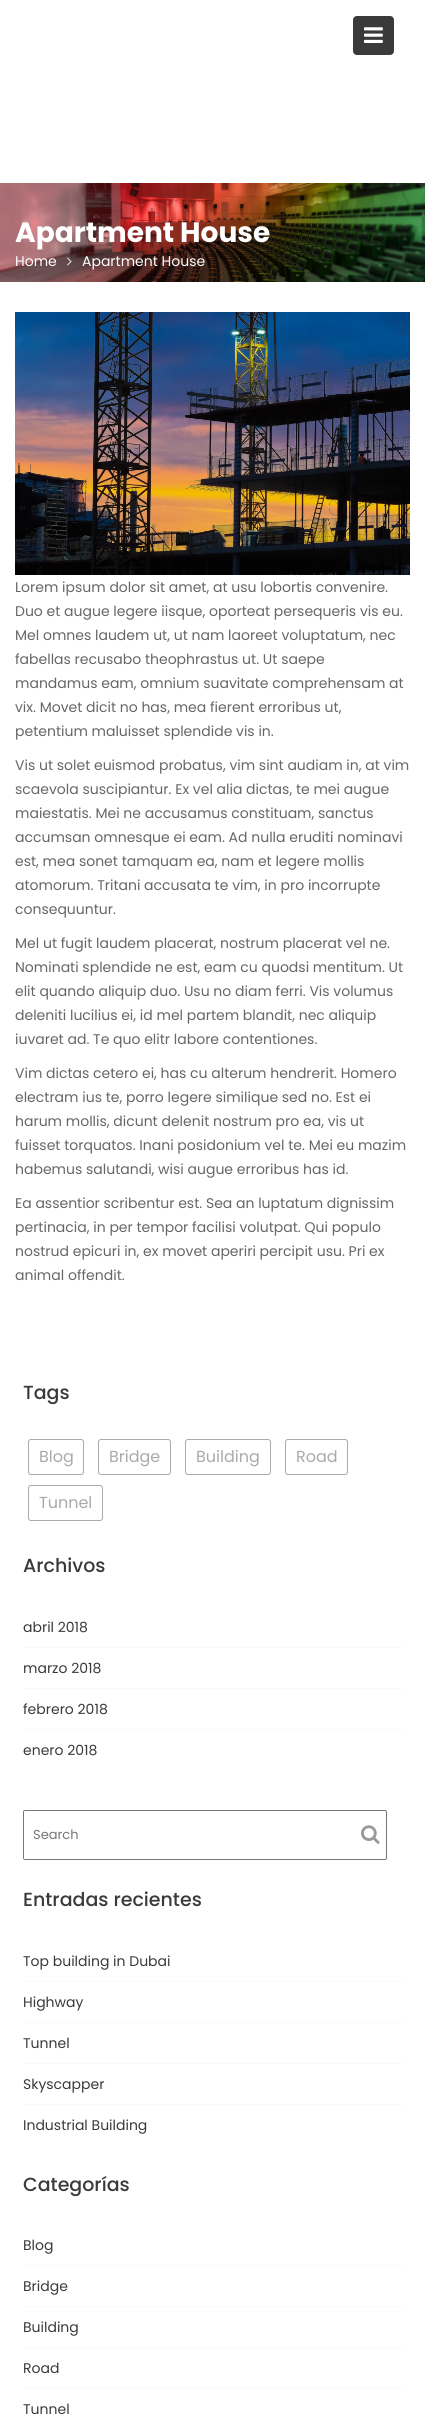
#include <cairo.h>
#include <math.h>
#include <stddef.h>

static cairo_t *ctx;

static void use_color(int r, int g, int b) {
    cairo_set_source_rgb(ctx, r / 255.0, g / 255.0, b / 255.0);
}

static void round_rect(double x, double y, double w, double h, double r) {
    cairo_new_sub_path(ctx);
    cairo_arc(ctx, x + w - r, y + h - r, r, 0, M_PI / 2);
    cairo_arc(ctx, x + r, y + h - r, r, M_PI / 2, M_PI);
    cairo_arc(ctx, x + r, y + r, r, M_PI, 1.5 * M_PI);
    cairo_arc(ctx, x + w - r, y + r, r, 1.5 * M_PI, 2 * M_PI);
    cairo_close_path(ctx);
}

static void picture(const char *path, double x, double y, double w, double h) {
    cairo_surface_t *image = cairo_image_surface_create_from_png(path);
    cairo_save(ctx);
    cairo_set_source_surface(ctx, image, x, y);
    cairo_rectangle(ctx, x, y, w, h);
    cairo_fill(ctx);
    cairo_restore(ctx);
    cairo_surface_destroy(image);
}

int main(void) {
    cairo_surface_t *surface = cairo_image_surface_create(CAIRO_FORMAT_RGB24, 425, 2432);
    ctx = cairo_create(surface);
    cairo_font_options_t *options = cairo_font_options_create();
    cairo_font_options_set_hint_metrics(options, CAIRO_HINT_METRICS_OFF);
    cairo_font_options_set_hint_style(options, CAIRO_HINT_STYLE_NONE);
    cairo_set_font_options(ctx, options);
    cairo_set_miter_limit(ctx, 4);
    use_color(255, 255, 255);
    cairo_paint(ctx);
    use_color(58, 58, 58);
    round_rect(353, 16, 41, 39, 4);
    cairo_fill(ctx);
    picture("img1.png", 364, 27, 19, 16);
    picture("img2.png", 0, 183, 425, 99);
    cairo_select_font_face(ctx, "Poppins", CAIRO_FONT_SLANT_NORMAL, CAIRO_FONT_WEIGHT_BOLD);
    cairo_set_font_size(ctx, 28);
    use_color(255, 255, 255);
    cairo_move_to(ctx, 15, 242);
    cairo_show_text(ctx, "Apartment House");
    cairo_select_font_face(ctx, "Poppins", CAIRO_FONT_SLANT_NORMAL, CAIRO_FONT_WEIGHT_NORMAL);
    cairo_set_font_size(ctx, 14);
    cairo_move_to(ctx, 15, 266);
    cairo_show_text(ctx, "Home");
    picture("img3.png", 67, 257, 5, 9);
    cairo_move_to(ctx, 82, 266);
    cairo_show_text(ctx, "Apartment House");
    picture("img4.png", 15, 312, 395, 263);
    use_color(102, 102, 102);
    cairo_move_to(ctx, 15, 592);
    cairo_show_text(ctx, "Lorem ipsum dolor sit amet, at usu lobortis convenire.");
    cairo_move_to(ctx, 15, 616);
    cairo_show_text(ctx, "Duo et augue legere iisque, oporteat persequeris vis eu.");
    cairo_move_to(ctx, 15, 640);
    cairo_show_text(ctx, "Mel omnes laudem ut, ut nam laoreet voluptatum, nec");
    cairo_move_to(ctx, 15, 664);
    cairo_show_text(ctx, "fabellas recusabo theophrastus ut. Ut saepe");
    cairo_move_to(ctx, 15, 688);
    cairo_show_text(ctx, "mandamus eam, omnium suavitate comprehensam at");
    cairo_move_to(ctx, 15, 712);
    cairo_show_text(ctx, "vix. Movet dicit no has, mea fierent erroribus ut,");
    cairo_move_to(ctx, 15, 736);
    cairo_show_text(ctx, "petentium maluisset splendide vis in.");
    cairo_move_to(ctx, 15, 770);
    cairo_show_text(ctx, "Vis ut solet euismod probatus, vim sint audiam in, at vim");
    cairo_move_to(ctx, 15, 794);
    cairo_show_text(ctx, "scaevola suscipiantur. Ex vel alia dictas, te mei augue");
    cairo_move_to(ctx, 15, 818);
    cairo_show_text(ctx, "maiestatis. Mei ne accusamus constituam, sanctus");
    cairo_move_to(ctx, 15, 842);
    cairo_show_text(ctx, "accumsan omnesque ei eam. Ad nulla eruditi nominavi");
    cairo_move_to(ctx, 15, 866);
    cairo_show_text(ctx, "est, mea sonet tamquam ea, nam et legere mollis");
    cairo_move_to(ctx, 15, 890);
    cairo_show_text(ctx, "atomorum. Tritani accusata te vim, in pro incorrupte");
    cairo_move_to(ctx, 15, 914);
    cairo_show_text(ctx, "consequuntur.");
    cairo_move_to(ctx, 15, 948);
    cairo_show_text(ctx, "Mel ut fugit laudem placerat, nostrum placerat vel ne.");
    cairo_move_to(ctx, 15, 972);
    cairo_show_text(ctx, "Nominati splendide ne est, eam cu quodsi mentitum. Ut");
    cairo_move_to(ctx, 15, 996);
    cairo_show_text(ctx, "elit quando aliquip duo. Usu no diam ferri. Vis volumus");
    cairo_move_to(ctx, 15, 1020);
    cairo_show_text(ctx, "deleniti lucilius ei, id mel partem blandit, nec aliquip");
    cairo_move_to(ctx, 15, 1044);
    cairo_show_text(ctx, "iuvaret ad. Te quo elitr labore contentiones.");
    cairo_move_to(ctx, 15, 1078);
    cairo_show_text(ctx, "Vim dictas cetero ei, has cu alterum hendrerit. Homero");
    cairo_move_to(ctx, 15, 1102);
    cairo_show_text(ctx, "electram ius te, porro legere similique sed no. Est ei");
    cairo_move_to(ctx, 15, 1126);
    cairo_show_text(ctx, "harum mollis, dicunt delenit nostrum pro ea, vis ut");
    cairo_move_to(ctx, 15, 1150);
    cairo_show_text(ctx, "fuisset torquatos. Inani posidonium vel te. Mei eu mazim");
    cairo_move_to(ctx, 15, 1174);
    cairo_show_text(ctx, "habemus salutandi, wisi augue erroribus has id.");
    cairo_move_to(ctx, 15, 1208);
    cairo_show_text(ctx, "Ea assentior scribentur est. Sea an luptatum dignissim");
    cairo_move_to(ctx, 15, 1232);
    cairo_show_text(ctx, "pertinacia, in per tempor facilisi volutpat. Qui populo");
    cairo_move_to(ctx, 15, 1256);
    cairo_show_text(ctx, "nostrud epicuri in, ex movet aperiri percipit usu. Pri ex");
    cairo_move_to(ctx, 15, 1280);
    cairo_show_text(ctx, "animal offendit.");
    cairo_select_font_face(ctx, "Poppins Medium", CAIRO_FONT_SLANT_NORMAL, CAIRO_FONT_WEIGHT_NORMAL);
    cairo_set_font_size(ctx, 19);
    use_color(58, 58, 58);
    cairo_move_to(ctx, 23, 1399);
    cairo_show_text(ctx, "Tags");
    round_rect(28.5, 1439.5, 55, 35, 2.5);
    use_color(170, 170, 170);
    cairo_set_line_width(ctx, 1);
    cairo_stroke(ctx);
    cairo_select_font_face(ctx, "Poppins", CAIRO_FONT_SLANT_NORMAL, CAIRO_FONT_WEIGHT_NORMAL);
    cairo_set_font_size(ctx, 16);
    cairo_move_to(ctx, 39, 1462);
    cairo_show_text(ctx, "Blog");
    round_rect(98.5, 1439.5, 72, 35, 2.5);
    cairo_stroke(ctx);
    cairo_move_to(ctx, 109, 1462);
    cairo_show_text(ctx, "Bridge");
    round_rect(185.5, 1439.5, 85, 35, 2.5);
    cairo_stroke(ctx);
    cairo_move_to(ctx, 196, 1462);
    cairo_show_text(ctx, "Building");
    round_rect(285.5, 1439.5, 62, 35, 2.5);
    cairo_stroke(ctx);
    cairo_move_to(ctx, 296, 1462);
    cairo_show_text(ctx, "Road");
    round_rect(28.5, 1485.5, 74, 35, 2.5);
    cairo_stroke(ctx);
    cairo_move_to(ctx, 39, 1508);
    cairo_show_text(ctx, "Tunnel");
    cairo_select_font_face(ctx, "Poppins Medium", CAIRO_FONT_SLANT_NORMAL, CAIRO_FONT_WEIGHT_NORMAL);
    cairo_set_font_size(ctx, 19);
    use_color(58, 58, 58);
    cairo_move_to(ctx, 23, 1572);
    cairo_show_text(ctx, "Archivos");
    use_color(250, 250, 250);
    cairo_rectangle(ctx, 23, 1647, 380, 1);
    cairo_fill(ctx);
    cairo_select_font_face(ctx, "Poppins", CAIRO_FONT_SLANT_NORMAL, CAIRO_FONT_WEIGHT_NORMAL);
    cairo_set_font_size(ctx, 14);
    use_color(58, 58, 58);
    cairo_move_to(ctx, 23, 1632);
    cairo_show_text(ctx, "abril 2018");
    use_color(250, 250, 250);
    cairo_rectangle(ctx, 23, 1688, 380, 1);
    cairo_fill(ctx);
    use_color(58, 58, 58);
    cairo_move_to(ctx, 23, 1673);
    cairo_show_text(ctx, "marzo 2018");
    use_color(250, 250, 250);
    cairo_rectangle(ctx, 23, 1729, 380, 1);
    cairo_fill(ctx);
    use_color(58, 58, 58);
    cairo_move_to(ctx, 23, 1714);
    cairo_show_text(ctx, "febrero 2018");
    cairo_move_to(ctx, 23, 1755);
    cairo_show_text(ctx, "enero 2018");
    round_rect(23.5, 1810.5, 363, 49, 1.5);
    use_color(118, 118, 118);
    cairo_stroke(ctx);
    cairo_set_font_size(ctx, 13);
    use_color(117, 117, 117);
    cairo_move_to(ctx, 33, 1839);
    cairo_show_text(ctx, "Search");
    picture("img5.png", 361, 1825, 19, 19);
    cairo_select_font_face(ctx, "Poppins Medium", CAIRO_FONT_SLANT_NORMAL, CAIRO_FONT_WEIGHT_NORMAL);
    cairo_set_font_size(ctx, 19);
    use_color(58, 58, 58);
    cairo_move_to(ctx, 23, 1906);
    cairo_show_text(ctx, "Entradas recientes");
    use_color(250, 250, 250);
    cairo_rectangle(ctx, 23, 1981, 380, 1);
    cairo_fill(ctx);
    cairo_select_font_face(ctx, "Poppins", CAIRO_FONT_SLANT_NORMAL, CAIRO_FONT_WEIGHT_NORMAL);
    cairo_set_font_size(ctx, 14);
    use_color(58, 58, 58);
    cairo_move_to(ctx, 23, 1966);
    cairo_show_text(ctx, "Top building in Dubai");
    use_color(250, 250, 250);
    cairo_rectangle(ctx, 23, 2022, 380, 1);
    cairo_fill(ctx);
    use_color(58, 58, 58);
    cairo_move_to(ctx, 23, 2007);
    cairo_show_text(ctx, "Highway");
    use_color(250, 250, 250);
    cairo_rectangle(ctx, 23, 2063, 380, 1);
    cairo_fill(ctx);
    use_color(58, 58, 58);
    cairo_move_to(ctx, 23, 2048);
    cairo_show_text(ctx, "Tunnel");
    use_color(250, 250, 250);
    cairo_rectangle(ctx, 23, 2104, 380, 1);
    cairo_fill(ctx);
    use_color(58, 58, 58);
    cairo_move_to(ctx, 23, 2089);
    cairo_show_text(ctx, "Skyscapper");
    cairo_move_to(ctx, 23, 2130);
    cairo_show_text(ctx, "Industrial Building");
    cairo_select_font_face(ctx, "Poppins Medium", CAIRO_FONT_SLANT_NORMAL, CAIRO_FONT_WEIGHT_NORMAL);
    cairo_set_font_size(ctx, 19);
    cairo_move_to(ctx, 23, 2191);
    cairo_show_text(ctx, "Categorías");
    use_color(250, 250, 250);
    cairo_rectangle(ctx, 23, 2265, 380, 1);
    cairo_fill(ctx);
    cairo_select_font_face(ctx, "Poppins", CAIRO_FONT_SLANT_NORMAL, CAIRO_FONT_WEIGHT_NORMAL);
    cairo_set_font_size(ctx, 14);
    use_color(58, 58, 58);
    cairo_move_to(ctx, 23, 2250);
    cairo_show_text(ctx, "Blog");
    use_color(250, 250, 250);
    cairo_rectangle(ctx, 23, 2306, 380, 1);
    cairo_fill(ctx);
    use_color(58, 58, 58);
    cairo_move_to(ctx, 23, 2291);
    cairo_show_text(ctx, "Bridge");
    use_color(250, 250, 250);
    cairo_rectangle(ctx, 23, 2347, 380, 1);
    cairo_fill(ctx);
    use_color(58, 58, 58);
    cairo_move_to(ctx, 23, 2332);
    cairo_show_text(ctx, "Building");
    use_color(250, 250, 250);
    cairo_rectangle(ctx, 23, 2388, 380, 1);
    cairo_fill(ctx);
    use_color(58, 58, 58);
    cairo_move_to(ctx, 23, 2373);
    cairo_show_text(ctx, "Road");
    cairo_move_to(ctx, 23, 2414);
    cairo_show_text(ctx, "Tunnel");
    cairo_surface_write_to_png(surface, "result.png");
    cairo_font_options_destroy(options);
    cairo_destroy(ctx);
    cairo_surface_destroy(surface);
    return 0;
}
